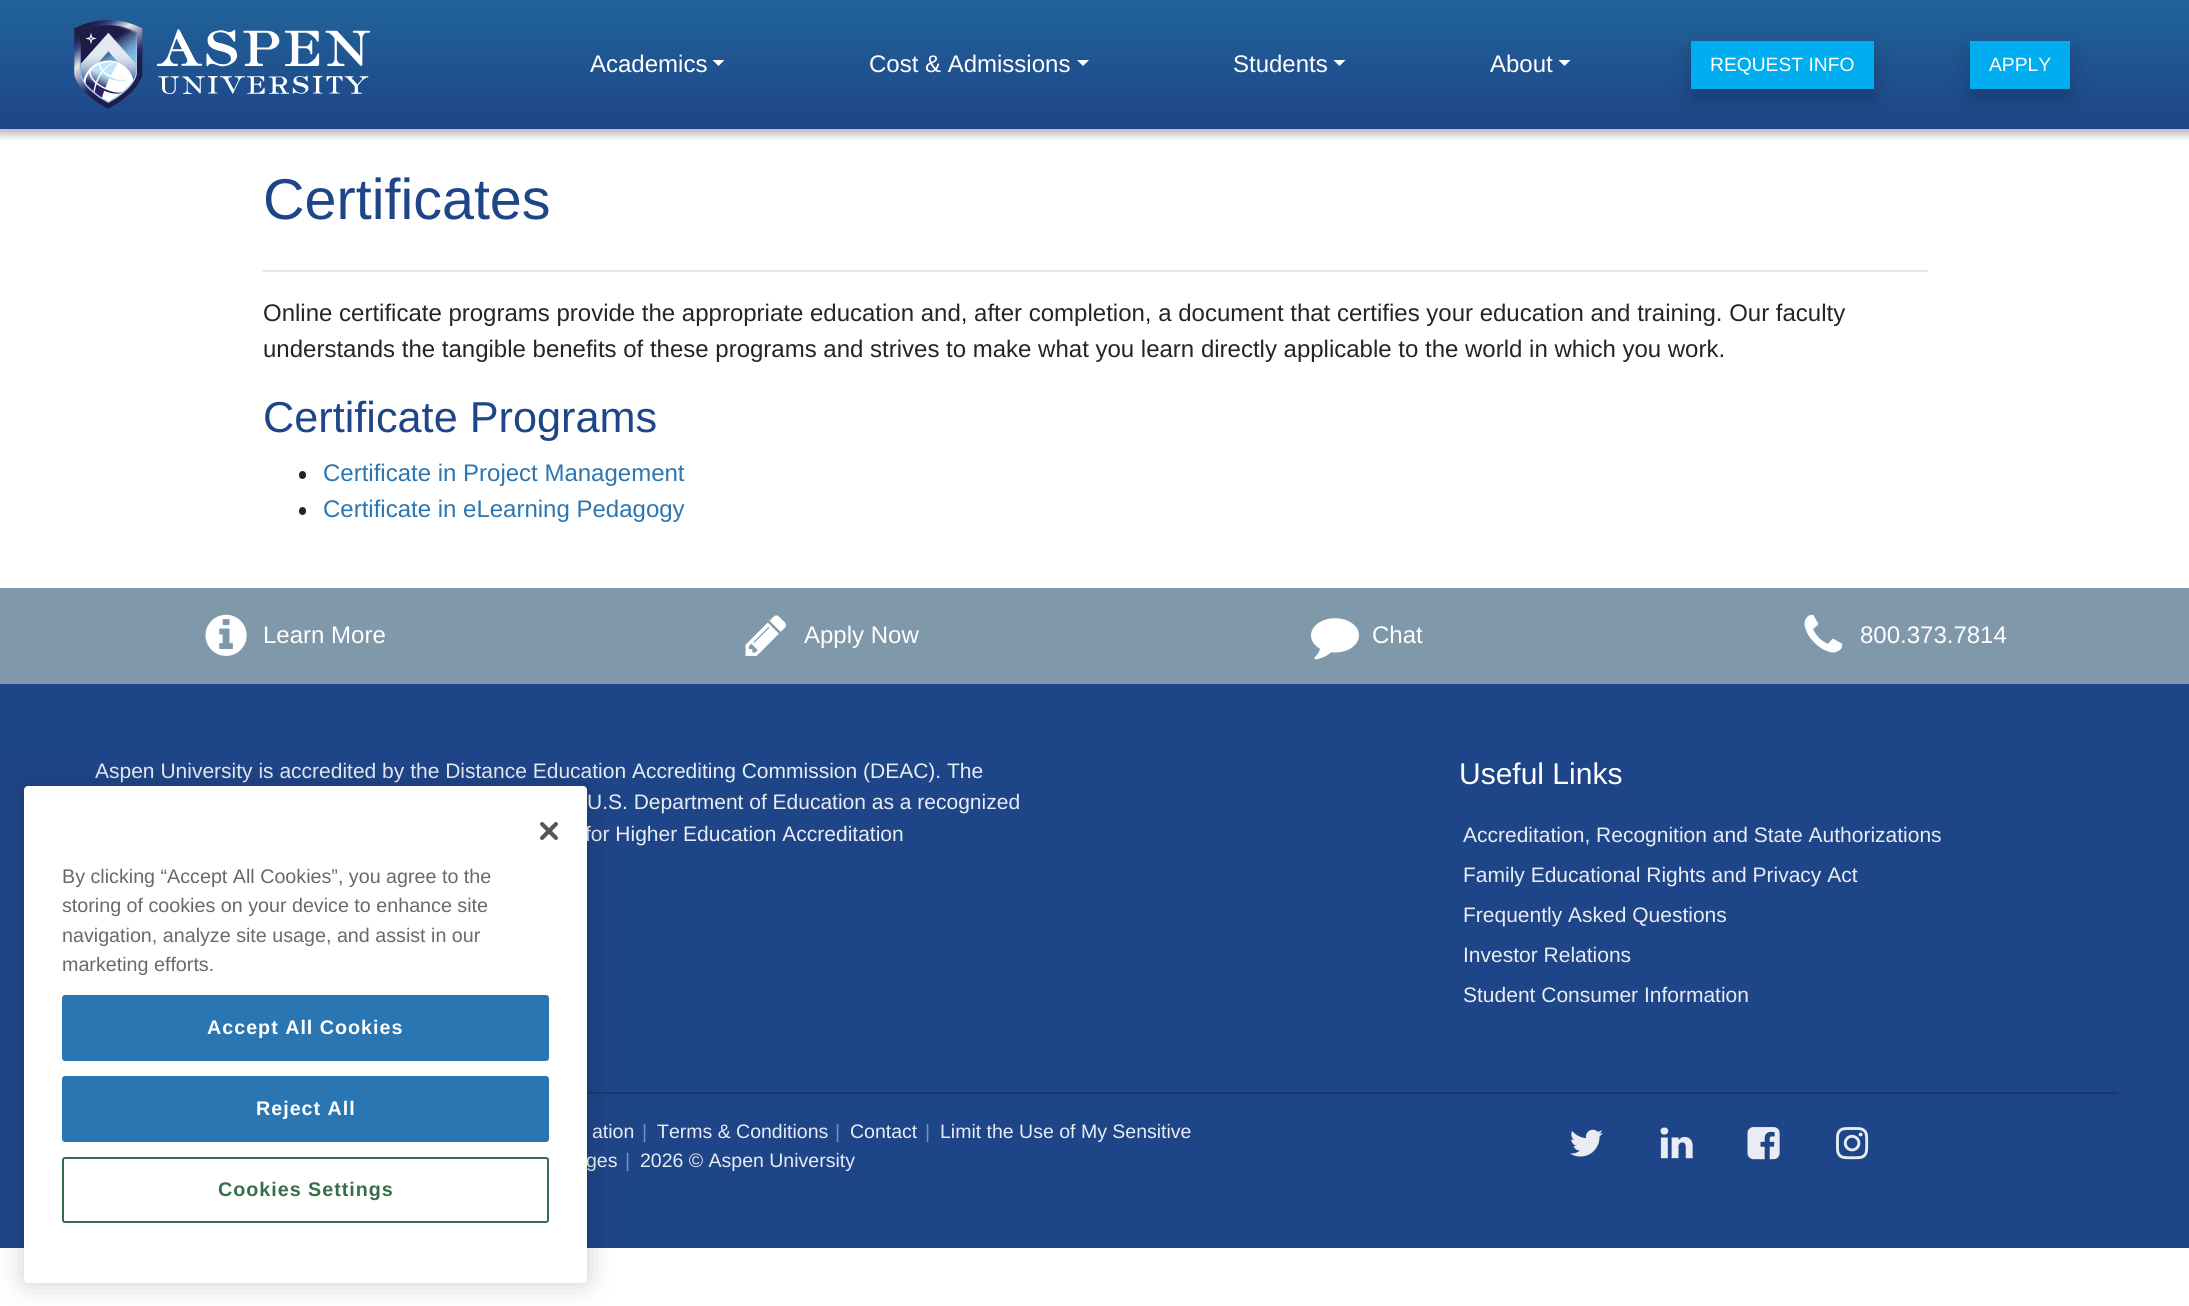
#include <cairo.h>
#include <math.h>
#include <stddef.h>

static cairo_t *ctx;

static void use_color(int r, int g, int b) {
    cairo_set_source_rgb(ctx, r / 255.0, g / 255.0, b / 255.0);
}

static void spaced_text(double x, double y, const char *s, double letter, double word) {
    cairo_move_to(ctx, x, y);
    while (*s) {
        char ch[5] = {0};
        int n = 0;
        do ch[n++] = *s++; while ((*s & 0xC0) == 0x80);
        cairo_show_text(ctx, ch);
        cairo_rel_move_to(ctx, letter + word * (*ch == ' '), 0);
    }
}

static void round_rect(double x, double y, double w, double h, double r) {
    cairo_new_sub_path(ctx);
    cairo_arc(ctx, x + w - r, y + h - r, r, 0, M_PI / 2);
    cairo_arc(ctx, x + r, y + h - r, r, M_PI / 2, M_PI);
    cairo_arc(ctx, x + r, y + r, r, M_PI, 1.5 * M_PI);
    cairo_arc(ctx, x + w - r, y + r, r, 1.5 * M_PI, 2 * M_PI);
    cairo_close_path(ctx);
}

static void shadow(double x, double y, double w, double h, double r, double blur, double alpha) {
    cairo_push_group_with_content(ctx, CAIRO_CONTENT_ALPHA);
    cairo_set_operator(ctx, CAIRO_OPERATOR_SOURCE);
    for (int i = 15; i >= -15 && fmin(w, h) + blur * i / 3 > 0; i -= 2) {
        double e = blur * i / 6;
        cairo_set_source_rgba(ctx, 0, 0, 0, alpha * erfc((i - 1) / 8.5) / 2);
        round_rect(x - e, y - e, w + 2 * e, h + 2 * e, fmax(0, fmin(r + e + blur * .6, fmin(w, h) / 2 + e)));
        cairo_fill(ctx);
    }
    cairo_pattern_t *soft = cairo_pop_group(ctx);
    cairo_mask(ctx, soft);
    cairo_pattern_destroy(soft);
}

static void picture(const char *path, double x, double y, double w, double h) {
    cairo_surface_t *image = cairo_image_surface_create_from_png(path);
    cairo_save(ctx);
    cairo_set_source_surface(ctx, image, x, y);
    cairo_rectangle(ctx, x, y, w, h);
    cairo_fill(ctx);
    cairo_restore(ctx);
    cairo_surface_destroy(image);
}

int main(void) {
    cairo_surface_t *surface = cairo_image_surface_create(CAIRO_FORMAT_RGB24, 2189, 1306);
    ctx = cairo_create(surface);
    cairo_font_options_t *options = cairo_font_options_create();
    cairo_font_options_set_hint_metrics(options, CAIRO_HINT_METRICS_OFF);
    cairo_font_options_set_hint_style(options, CAIRO_HINT_STYLE_NONE);
    cairo_set_font_options(ctx, options);
    cairo_set_miter_limit(ctx, 4);
    cairo_pattern_t *gradient;
    use_color(255, 255, 255);
    cairo_paint(ctx);
    use_color(10, 2, 3);
    shadow(-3, -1, 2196, 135, 0, 4.5, 0.3);
    gradient = cairo_pattern_create_linear(1095, 129, 1095, 0);
    cairo_pattern_add_color_stop_rgba(gradient, 0, 0.122, 0.271, 0.537, 1);
    cairo_pattern_add_color_stop_rgba(gradient, 1, 0.125, 0.388, 0.6, 1);
    cairo_set_source(ctx, gradient);
    cairo_pattern_destroy(gradient);
    cairo_rectangle(ctx, 0, 0, 2189, 129);
    cairo_fill(ctx);
    picture("img1.png", 74, 20, 297, 89);
    cairo_select_font_face(ctx, "Liberation Sans", CAIRO_FONT_SLANT_NORMAL, CAIRO_FONT_WEIGHT_NORMAL);
    cairo_set_font_size(ctx, 24);
    use_color(255, 255, 255);
    cairo_move_to(ctx, 590, 72);
    cairo_show_text(ctx, "Academics");
    cairo_new_path(ctx);
    cairo_move_to(ctx, 712.5, 60);
    cairo_line_to(ctx, 724.5, 60);
    cairo_line_to(ctx, 718.5, 66);
    cairo_close_path(ctx);
    cairo_fill(ctx);
    cairo_move_to(ctx, 869, 72);
    cairo_show_text(ctx, "Cost & Admissions");
    cairo_new_path(ctx);
    cairo_move_to(ctx, 1077, 60);
    cairo_line_to(ctx, 1089, 60);
    cairo_line_to(ctx, 1083, 66);
    cairo_close_path(ctx);
    cairo_fill(ctx);
    cairo_move_to(ctx, 1233, 72);
    cairo_show_text(ctx, "Students");
    cairo_new_path(ctx);
    cairo_move_to(ctx, 1333.5, 60);
    cairo_line_to(ctx, 1345.5, 60);
    cairo_line_to(ctx, 1339.5, 66);
    cairo_close_path(ctx);
    cairo_fill(ctx);
    cairo_move_to(ctx, 1490, 72);
    cairo_show_text(ctx, "About");
    cairo_new_path(ctx);
    cairo_move_to(ctx, 1558.5, 60);
    cairo_line_to(ctx, 1570.5, 60);
    cairo_line_to(ctx, 1564.5, 66);
    cairo_close_path(ctx);
    cairo_fill(ctx);
    use_color(0, 0, 0);
    shadow(1691, 53, 183, 48, 0, 11, 0.2);
    use_color(0, 173, 239);
    cairo_rectangle(ctx, 1691, 41, 183, 48);
    cairo_fill(ctx);
    cairo_set_font_size(ctx, 19.25);
    use_color(255, 255, 255);
    cairo_move_to(ctx, 1710, 71);
    cairo_show_text(ctx, "REQUEST INFO");
    use_color(0, 0, 0);
    shadow(1970, 53, 100, 48, 0, 11, 0.2);
    use_color(0, 173, 239);
    cairo_rectangle(ctx, 1970, 41, 100, 48);
    cairo_fill(ctx);
    use_color(255, 255, 255);
    cairo_move_to(ctx, 1989, 71);
    cairo_show_text(ctx, "APPLY");
    cairo_set_font_size(ctx, 57.5);
    use_color(31, 69, 137);
    cairo_move_to(ctx, 263, 219);
    cairo_show_text(ctx, "Certificates");
    use_color(230, 230, 230);
    cairo_rectangle(ctx, 263, 270, 1665, 2);
    cairo_fill(ctx);
    cairo_set_font_size(ctx, 24);
    use_color(33, 37, 41);
    cairo_move_to(ctx, 263, 321);
    cairo_show_text(ctx, "Online certificate programs provide the appropriate education and, after completion, a document that certifies your education and training. Our faculty");
    cairo_move_to(ctx, 263, 357);
    cairo_show_text(ctx, "understands the tangible benefits of these programs and strives to make what you learn directly applicable to the world in which you work.");
    cairo_set_font_size(ctx, 43.25);
    use_color(31, 69, 137);
    cairo_move_to(ctx, 263, 432);
    cairo_show_text(ctx, "Certificate Programs");
    use_color(33, 37, 41);
    round_rect(299, 471, 7, 8, 3.5);
    cairo_fill(ctx);
    cairo_set_font_size(ctx, 24);
    use_color(42, 118, 179);
    cairo_move_to(ctx, 323, 481);
    cairo_show_text(ctx, "Certificate in Project Management");
    use_color(33, 37, 41);
    round_rect(299, 507, 7, 8, 3.5);
    cairo_fill(ctx);
    use_color(42, 118, 179);
    cairo_move_to(ctx, 323, 517);
    cairo_show_text(ctx, "Certificate in eLearning Pedagogy");
    use_color(128, 153, 170);
    cairo_rectangle(ctx, 0, 588, 2189, 96);
    cairo_fill(ctx);
    picture("img2.png", 205, 614, 42, 42);
    use_color(255, 255, 255);
    cairo_move_to(ctx, 263, 643);
    cairo_show_text(ctx, "Learn More");
    picture("img3.png", 745, 615, 41, 41);
    cairo_move_to(ctx, 804, 643);
    cairo_show_text(ctx, "Apply Now");
    picture("img4.png", 1311, 618, 48, 42);
    cairo_move_to(ctx, 1372, 643);
    cairo_show_text(ctx, "Chat");
    picture("img5.png", 1804, 614, 39, 39);
    cairo_move_to(ctx, 1860, 643);
    cairo_show_text(ctx, "800.373.7814");
    use_color(31, 69, 137);
    cairo_rectangle(ctx, 0, 684, 2189, 564);
    cairo_fill(ctx);
    cairo_set_font_size(ctx, 21);
    use_color(233, 236, 243);
    cairo_move_to(ctx, 95, 778);
    cairo_show_text(ctx, "Aspen University is accredited by the Distance Education Accrediting Commission (DEAC). The");
    cairo_move_to(ctx, 587, 809);
    cairo_show_text(ctx, "U.S. Department of Education as a recognized");
    cairo_move_to(ctx, 585, 841);
    cairo_show_text(ctx, "for Higher Education Accreditation");
    cairo_set_font_size(ctx, 30);
    use_color(255, 255, 255);
    cairo_move_to(ctx, 1459, 784);
    cairo_show_text(ctx, "Useful Links");
    cairo_set_font_size(ctx, 21);
    use_color(233, 236, 243);
    cairo_move_to(ctx, 1463, 842);
    cairo_show_text(ctx, "Accreditation, Recognition and State Authorizations");
    cairo_move_to(ctx, 1463, 882);
    cairo_show_text(ctx, "Family Educational Rights and Privacy Act");
    cairo_move_to(ctx, 1463, 922);
    cairo_show_text(ctx, "Frequently Asked Questions");
    cairo_move_to(ctx, 1463, 962);
    cairo_show_text(ctx, "Investor Relations");
    cairo_move_to(ctx, 1463, 1002);
    cairo_show_text(ctx, "Student Consumer Information");
    use_color(27, 56, 110);
    cairo_rectangle(ctx, 587, 1092, 1531, 2);
    cairo_fill(ctx);
    cairo_set_font_size(ctx, 19.5);
    use_color(233, 236, 243);
    cairo_move_to(ctx, 592, 1138);
    cairo_show_text(ctx, "ation");
    use_color(121, 143, 184);
    cairo_move_to(ctx, 642, 1138);
    cairo_show_text(ctx, "|");
    use_color(233, 236, 243);
    cairo_move_to(ctx, 657, 1138);
    cairo_show_text(ctx, "Terms & Conditions");
    use_color(121, 143, 184);
    cairo_move_to(ctx, 835, 1138);
    cairo_show_text(ctx, "|");
    use_color(233, 236, 243);
    cairo_move_to(ctx, 850, 1138);
    cairo_show_text(ctx, "Contact");
    use_color(121, 143, 184);
    cairo_move_to(ctx, 925, 1138);
    cairo_show_text(ctx, "|");
    use_color(233, 236, 243);
    cairo_move_to(ctx, 940, 1138);
    cairo_show_text(ctx, "Limit the Use of My Sensitive");
    cairo_move_to(ctx, 586, 1167);
    cairo_show_text(ctx, "ges");
    use_color(121, 143, 184);
    cairo_move_to(ctx, 625, 1167);
    cairo_show_text(ctx, "|");
    use_color(233, 236, 243);
    cairo_move_to(ctx, 640, 1167);
    cairo_show_text(ctx, "2026 © Aspen University");
    picture("img6.png", 1570, 1129, 33, 28);
    picture("img7.png", 1660, 1127, 33, 32);
    picture("img8.png", 1747, 1127, 33, 33);
    picture("img9.png", 1836, 1127, 33, 33);
    use_color(0, 0, 0);
    shadow(24, 786, 563, 497, 4, 13.5, 0.2);
    use_color(255, 255, 255);
    round_rect(24, 786, 563, 497, 4);
    cairo_fill(ctx);
    picture("img10.png", 540, 822, 18, 18);
    cairo_set_font_size(ctx, 19.7);
    use_color(105, 105, 105);
    cairo_move_to(ctx, 62, 883);
    cairo_show_text(ctx, "By clicking “Accept All Cookies”, you agree to the");
    cairo_move_to(ctx, 62, 912);
    cairo_show_text(ctx, "storing of cookies on your device to enhance site");
    cairo_move_to(ctx, 62, 942);
    cairo_show_text(ctx, "navigation, analyze site usage, and assist in our");
    cairo_move_to(ctx, 62, 971);
    cairo_show_text(ctx, "marketing efforts.");
    use_color(42, 118, 179);
    round_rect(63, 996, 485, 64, 2);
    cairo_fill_preserve(ctx);
    cairo_stroke(ctx);
    cairo_select_font_face(ctx, "Liberation Sans", CAIRO_FONT_SLANT_NORMAL, CAIRO_FONT_WEIGHT_BOLD);
    use_color(255, 255, 255);
    spaced_text(207, 1034, "Accept All Cookies", 1, 0);
    use_color(42, 118, 179);
    round_rect(63, 1077, 485, 64, 2);
    cairo_fill_preserve(ctx);
    cairo_stroke(ctx);
    use_color(255, 255, 255);
    spaced_text(256, 1115, "Reject All", 1, 0);
    round_rect(63, 1158, 485, 64, 2);
    use_color(52, 110, 74);
    cairo_stroke(ctx);
    spaced_text(218, 1196, "Cookies Settings", 1, 0);
    cairo_surface_write_to_png(surface, "result.png");
    cairo_font_options_destroy(options);
    cairo_destroy(ctx);
    cairo_surface_destroy(surface);
    return 0;
}
